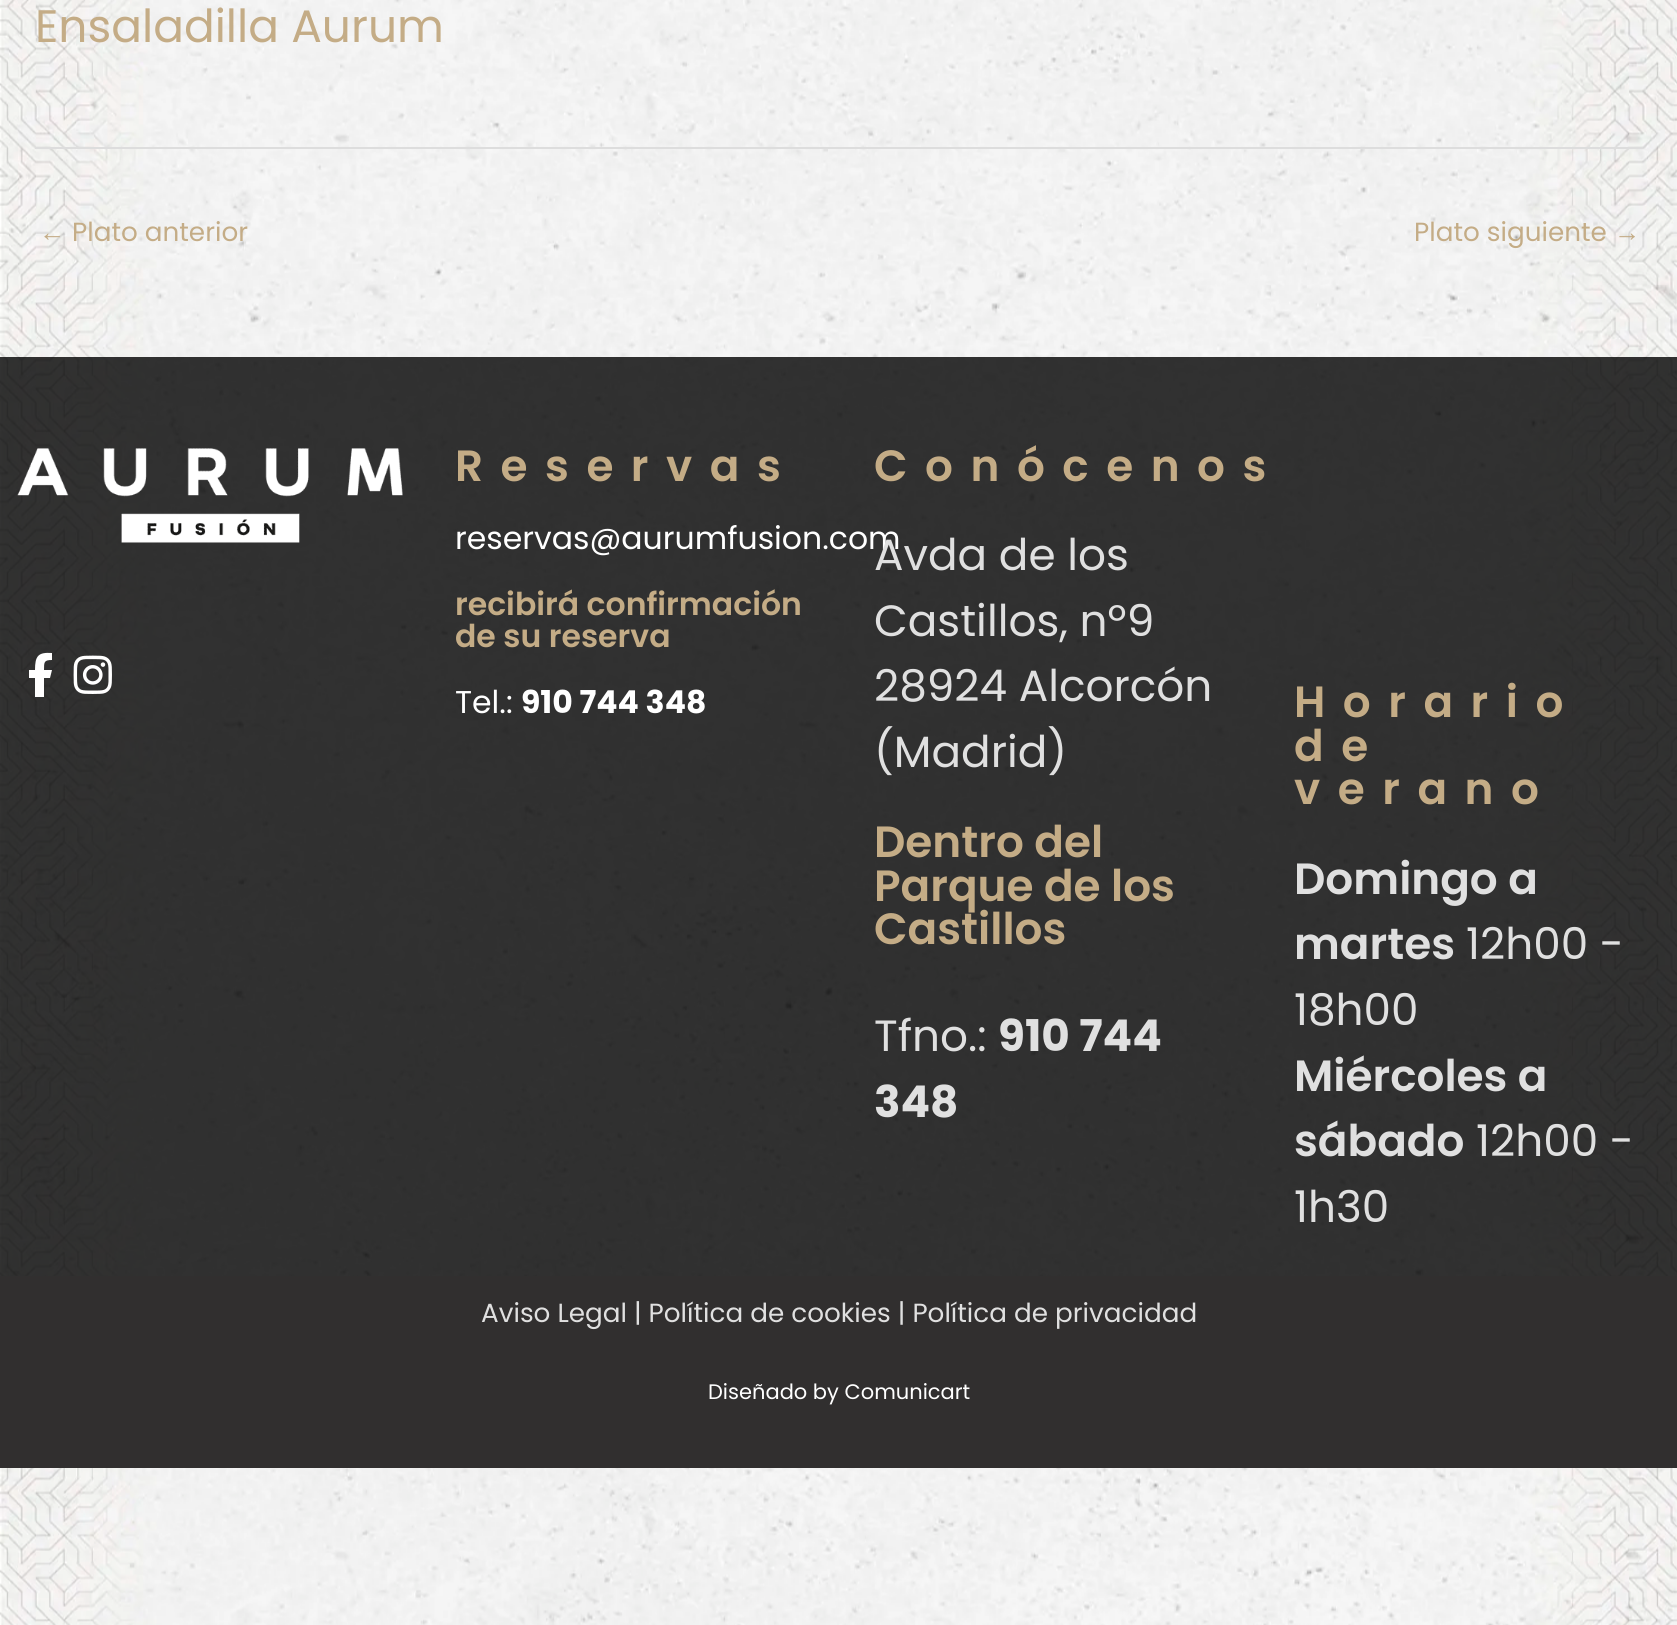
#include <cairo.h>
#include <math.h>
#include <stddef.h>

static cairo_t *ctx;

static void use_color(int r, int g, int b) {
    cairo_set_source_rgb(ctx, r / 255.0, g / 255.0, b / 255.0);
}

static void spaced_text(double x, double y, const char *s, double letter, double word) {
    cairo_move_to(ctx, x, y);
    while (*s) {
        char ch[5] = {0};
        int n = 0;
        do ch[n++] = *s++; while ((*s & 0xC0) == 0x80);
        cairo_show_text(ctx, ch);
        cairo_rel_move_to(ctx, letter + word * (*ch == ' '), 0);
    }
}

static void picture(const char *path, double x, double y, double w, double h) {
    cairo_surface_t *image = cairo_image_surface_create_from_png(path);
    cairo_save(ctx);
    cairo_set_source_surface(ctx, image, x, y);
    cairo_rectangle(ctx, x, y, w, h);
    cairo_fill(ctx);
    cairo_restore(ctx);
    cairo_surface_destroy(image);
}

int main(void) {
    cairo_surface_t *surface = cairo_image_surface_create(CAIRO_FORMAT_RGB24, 1677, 1625);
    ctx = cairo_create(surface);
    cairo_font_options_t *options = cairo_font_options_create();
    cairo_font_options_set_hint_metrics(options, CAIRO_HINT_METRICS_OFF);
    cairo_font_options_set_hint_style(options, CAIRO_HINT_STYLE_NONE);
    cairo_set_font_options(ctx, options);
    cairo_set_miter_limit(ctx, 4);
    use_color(255, 255, 255);
    cairo_paint(ctx);
    picture("img1.png", 0, 0, 1677, 1625);
    cairo_select_font_face(ctx, "Poppins", CAIRO_FONT_SLANT_NORMAL, CAIRO_FONT_WEIGHT_NORMAL);
    cairo_set_font_size(ctx, 45.5);
    use_color(196, 172, 134);
    cairo_move_to(ctx, 35, 42);
    cairo_show_text(ctx, "Ensaladilla Aurum");
    use_color(221, 221, 221);
    cairo_rectangle(ctx, 35, 147, 1608, 2);
    cairo_fill(ctx);
    cairo_select_font_face(ctx, "Liberation Sans", CAIRO_FONT_SLANT_NORMAL, CAIRO_FONT_WEIGHT_NORMAL);
    cairo_set_font_size(ctx, 26.25);
    use_color(196, 172, 134);
    cairo_move_to(ctx, 39, 241);
    cairo_show_text(ctx, "←");
    cairo_select_font_face(ctx, "Poppins", CAIRO_FONT_SLANT_NORMAL, CAIRO_FONT_WEIGHT_NORMAL);
    cairo_move_to(ctx, 72, 241);
    cairo_show_text(ctx, "Plato anterior");
    cairo_move_to(ctx, 1414, 241);
    cairo_show_text(ctx, "Plato siguiente");
    cairo_select_font_face(ctx, "Liberation Sans", CAIRO_FONT_SLANT_NORMAL, CAIRO_FONT_WEIGHT_NORMAL);
    cairo_move_to(ctx, 1614, 241);
    cairo_show_text(ctx, "→");
    cairo_set_source_rgba(ctx, 0, 0, 0, 0.8);
    cairo_rectangle(ctx, 0, 357, 1677, 919);
    cairo_fill(ctx);
    picture("img2.png", 17, 448, 386, 95);
    use_color(255, 255, 255);
    cairo_new_path(ctx);
    cairo_move_to(ctx, 50, 678);
    cairo_line_to(ctx, 44, 678);
    cairo_line_to(ctx, 44, 697);
    cairo_line_to(ctx, 35, 697);
    cairo_line_to(ctx, 35, 678);
    cairo_line_to(ctx, 29, 678);
    cairo_line_to(ctx, 29, 670);
    cairo_line_to(ctx, 35, 670);
    cairo_curve_to(ctx, 35, 656, 38, 652, 52, 653);
    cairo_line_to(ctx, 52, 660);
    cairo_curve_to(ctx, 44, 660, 44, 662, 44, 670);
    cairo_line_to(ctx, 52, 670);
    cairo_close_path(ctx);
    cairo_fill(ctx);
    picture("img3.png", 73, 655, 39, 39);
    cairo_select_font_face(ctx, "Poppins SemiBold", CAIRO_FONT_SLANT_NORMAL, CAIRO_FONT_WEIGHT_NORMAL);
    cairo_set_font_size(ctx, 43.75);
    use_color(196, 172, 134);
    spaced_text(455, 481, "Reservas", 17.5, 0);
    cairo_select_font_face(ctx, "Poppins", CAIRO_FONT_SLANT_NORMAL, CAIRO_FONT_WEIGHT_NORMAL);
    cairo_set_font_size(ctx, 31.5);
    use_color(255, 255, 255);
    cairo_move_to(ctx, 455, 549);
    cairo_show_text(ctx, "reservas@aurumfusion.com");
    cairo_select_font_face(ctx, "Poppins SemiBold", CAIRO_FONT_SLANT_NORMAL, CAIRO_FONT_WEIGHT_NORMAL);
    use_color(196, 172, 134);
    cairo_move_to(ctx, 455, 615);
    cairo_show_text(ctx, "recibirá confirmación");
    cairo_move_to(ctx, 455, 647);
    cairo_show_text(ctx, "de su reserva");
    cairo_select_font_face(ctx, "Poppins", CAIRO_FONT_SLANT_NORMAL, CAIRO_FONT_WEIGHT_NORMAL);
    use_color(255, 255, 255);
    cairo_move_to(ctx, 455, 713);
    cairo_show_text(ctx, "Tel.:");
    cairo_select_font_face(ctx, "Poppins", CAIRO_FONT_SLANT_NORMAL, CAIRO_FONT_WEIGHT_BOLD);
    cairo_move_to(ctx, 521, 713);
    cairo_show_text(ctx, "910 744 348");
    cairo_select_font_face(ctx, "Poppins SemiBold", CAIRO_FONT_SLANT_NORMAL, CAIRO_FONT_WEIGHT_NORMAL);
    cairo_set_font_size(ctx, 43.75);
    use_color(196, 172, 134);
    spaced_text(874, 481, "Conócenos", 17.5, 0);
    cairo_select_font_face(ctx, "Poppins", CAIRO_FONT_SLANT_NORMAL, CAIRO_FONT_WEIGHT_NORMAL);
    use_color(224, 224, 224);
    cairo_move_to(ctx, 874, 570);
    cairo_show_text(ctx, "Avda de los");
    cairo_move_to(ctx, 874, 636);
    cairo_show_text(ctx, "Castillos, nº9");
    cairo_move_to(ctx, 874, 701);
    cairo_show_text(ctx, "28924 Alcorcón");
    cairo_move_to(ctx, 874, 767);
    cairo_show_text(ctx, "(Madrid)");
    cairo_select_font_face(ctx, "Poppins SemiBold", CAIRO_FONT_SLANT_NORMAL, CAIRO_FONT_WEIGHT_NORMAL);
    use_color(196, 172, 134);
    cairo_move_to(ctx, 874, 857);
    cairo_show_text(ctx, "Dentro del");
    cairo_move_to(ctx, 874, 901);
    cairo_show_text(ctx, "Parque de los");
    cairo_move_to(ctx, 874, 944);
    cairo_show_text(ctx, "Castillos");
    cairo_select_font_face(ctx, "Poppins", CAIRO_FONT_SLANT_NORMAL, CAIRO_FONT_WEIGHT_NORMAL);
    use_color(224, 224, 224);
    cairo_move_to(ctx, 874, 1051);
    cairo_show_text(ctx, "Tfno.:");
    cairo_select_font_face(ctx, "Poppins", CAIRO_FONT_SLANT_NORMAL, CAIRO_FONT_WEIGHT_BOLD);
    cairo_move_to(ctx, 998, 1051);
    cairo_show_text(ctx, "910 744");
    cairo_move_to(ctx, 874, 1117);
    cairo_show_text(ctx, "348");
    cairo_select_font_face(ctx, "Poppins SemiBold", CAIRO_FONT_SLANT_NORMAL, CAIRO_FONT_WEIGHT_NORMAL);
    use_color(196, 172, 134);
    spaced_text(1294, 717, "Horario", 17.5, 0);
    spaced_text(1294, 761, "de", 17.5, 0);
    spaced_text(1294, 804, "verano", 17.5, 0);
    use_color(224, 224, 224);
    cairo_move_to(ctx, 1294, 894);
    cairo_show_text(ctx, "Domingo a");
    cairo_move_to(ctx, 1294, 959);
    cairo_show_text(ctx, "martes");
    cairo_select_font_face(ctx, "Poppins", CAIRO_FONT_SLANT_NORMAL, CAIRO_FONT_WEIGHT_NORMAL);
    cairo_move_to(ctx, 1466, 959);
    cairo_show_text(ctx, "12h00 -");
    cairo_move_to(ctx, 1294, 1025);
    cairo_show_text(ctx, "18h00");
    cairo_select_font_face(ctx, "Poppins SemiBold", CAIRO_FONT_SLANT_NORMAL, CAIRO_FONT_WEIGHT_NORMAL);
    cairo_move_to(ctx, 1294, 1091);
    cairo_show_text(ctx, "Miércoles a");
    cairo_move_to(ctx, 1294, 1156);
    cairo_show_text(ctx, "sábado");
    cairo_select_font_face(ctx, "Poppins", CAIRO_FONT_SLANT_NORMAL, CAIRO_FONT_WEIGHT_NORMAL);
    cairo_move_to(ctx, 1476, 1156);
    cairo_show_text(ctx, "12h00 -");
    cairo_move_to(ctx, 1294, 1222);
    cairo_show_text(ctx, "1h30");
    use_color(49, 47, 47);
    cairo_rectangle(ctx, 0, 1276, 1677, 192);
    cairo_fill(ctx);
    cairo_set_font_size(ctx, 26.25);
    use_color(224, 224, 224);
    cairo_move_to(ctx, 481, 1322);
    cairo_show_text(ctx, "Aviso Legal | Política de cookies | Política de privacidad");
    cairo_set_font_size(ctx, 21);
    use_color(255, 255, 255);
    cairo_move_to(ctx, 708, 1399);
    cairo_show_text(ctx, "Diseñado by Comunicart");
    cairo_surface_write_to_png(surface, "result.png");
    cairo_font_options_destroy(options);
    cairo_destroy(ctx);
    cairo_surface_destroy(surface);
    return 0;
}
